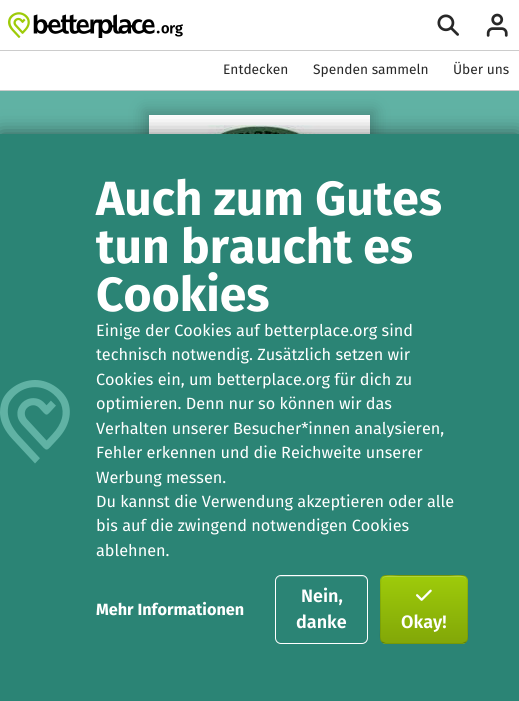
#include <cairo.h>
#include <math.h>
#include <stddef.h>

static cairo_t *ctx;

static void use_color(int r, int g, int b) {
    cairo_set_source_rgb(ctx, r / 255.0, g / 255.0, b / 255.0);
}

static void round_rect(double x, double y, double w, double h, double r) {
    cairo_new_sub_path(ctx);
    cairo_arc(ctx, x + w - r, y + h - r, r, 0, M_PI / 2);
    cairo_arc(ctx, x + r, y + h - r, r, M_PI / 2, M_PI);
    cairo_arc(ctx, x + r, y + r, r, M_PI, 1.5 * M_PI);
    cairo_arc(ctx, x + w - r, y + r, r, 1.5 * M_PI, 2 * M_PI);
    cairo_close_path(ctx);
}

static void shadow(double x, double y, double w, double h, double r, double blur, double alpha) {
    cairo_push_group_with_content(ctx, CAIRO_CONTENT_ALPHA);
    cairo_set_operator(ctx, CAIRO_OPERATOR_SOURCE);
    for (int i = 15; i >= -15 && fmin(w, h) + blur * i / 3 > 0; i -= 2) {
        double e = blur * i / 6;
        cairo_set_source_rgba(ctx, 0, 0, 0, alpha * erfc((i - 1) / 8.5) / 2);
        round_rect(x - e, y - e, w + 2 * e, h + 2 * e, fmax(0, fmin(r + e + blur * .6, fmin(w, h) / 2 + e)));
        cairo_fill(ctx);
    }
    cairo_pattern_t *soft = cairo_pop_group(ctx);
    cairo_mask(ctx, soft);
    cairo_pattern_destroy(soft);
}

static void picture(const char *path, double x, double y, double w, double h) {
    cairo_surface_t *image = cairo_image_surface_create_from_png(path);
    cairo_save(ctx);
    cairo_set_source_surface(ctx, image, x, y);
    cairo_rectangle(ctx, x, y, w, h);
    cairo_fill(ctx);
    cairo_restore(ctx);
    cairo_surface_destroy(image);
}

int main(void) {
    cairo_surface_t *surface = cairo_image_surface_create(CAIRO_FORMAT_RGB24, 519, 701);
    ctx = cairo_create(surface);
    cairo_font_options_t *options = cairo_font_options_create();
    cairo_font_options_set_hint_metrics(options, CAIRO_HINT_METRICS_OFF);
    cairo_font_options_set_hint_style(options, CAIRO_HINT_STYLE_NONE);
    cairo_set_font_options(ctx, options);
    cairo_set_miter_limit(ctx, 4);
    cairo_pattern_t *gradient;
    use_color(255, 255, 255);
    cairo_paint(ctx);
    use_color(96, 178, 164);
    cairo_rectangle(ctx, 0, 91, 519, 43);
    cairo_fill(ctx);
    use_color(0, 0, 0);
    shadow(144, 110, 231, 230, 0, 7.5, 0.2);
    use_color(204, 204, 204);
    cairo_rectangle(ctx, 0, 90, 519, 1);
    cairo_fill(ctx);
    picture("img1.png", 8, 12, 175, 26);
    picture("img2.png", 437, 14, 22, 22);
    picture("img3.png", 486, 13, 22, 24);
    cairo_rectangle(ctx, 0, 50, 519, 1);
    cairo_fill(ctx);
    cairo_select_font_face(ctx, "Fira Sans", CAIRO_FONT_SLANT_NORMAL, CAIRO_FONT_WEIGHT_NORMAL);
    cairo_set_font_size(ctx, 13.75);
    use_color(40, 40, 40);
    cairo_move_to(ctx, 223, 74);
    cairo_show_text(ctx, "Entdecken");
    cairo_move_to(ctx, 313, 74);
    cairo_show_text(ctx, "Spenden sammeln");
    cairo_move_to(ctx, 453, 74);
    cairo_show_text(ctx, "Über uns");
    use_color(255, 255, 255);
    cairo_rectangle(ctx, 149, 115, 221, 19);
    cairo_fill(ctx);
    picture("img4.png", 160, 125, 200, 9);
    use_color(0, 0, 0);
    shadow(0, 134, 519, 567, 0, 10, 0.5);
    use_color(43, 132, 117);
    cairo_rectangle(ctx, 0, 134, 519, 567);
    cairo_fill(ctx);
    picture("img5.png", 0, 380, 70, 84);
    cairo_select_font_face(ctx, "Fira Sans", CAIRO_FONT_SLANT_NORMAL, CAIRO_FONT_WEIGHT_BOLD);
    cairo_set_font_size(ctx, 48);
    use_color(255, 255, 255);
    cairo_move_to(ctx, 96, 215);
    cairo_show_text(ctx, "Auch zum Gutes");
    cairo_move_to(ctx, 96, 263);
    cairo_show_text(ctx, "tun braucht es");
    cairo_move_to(ctx, 96, 311);
    cairo_show_text(ctx, "Cookies");
    cairo_select_font_face(ctx, "Fira Sans", CAIRO_FONT_SLANT_NORMAL, CAIRO_FONT_WEIGHT_NORMAL);
    cairo_set_font_size(ctx, 16.25);
    cairo_move_to(ctx, 96, 336);
    cairo_show_text(ctx, "Einige der Cookies auf betterplace.org sind");
    cairo_move_to(ctx, 96, 360);
    cairo_show_text(ctx, "technisch notwendig. Zusätzlich setzen wir");
    cairo_move_to(ctx, 96, 385);
    cairo_show_text(ctx, "Cookies ein, um betterplace.org für dich zu");
    cairo_move_to(ctx, 96, 409);
    cairo_show_text(ctx, "optimieren. Denn nur so können wir das");
    cairo_move_to(ctx, 96, 434);
    cairo_show_text(ctx, "Verhalten unserer Besucher*innen analysieren,");
    cairo_move_to(ctx, 96, 458);
    cairo_show_text(ctx, "Fehler erkennen und die Reichweite unserer");
    cairo_move_to(ctx, 96, 483);
    cairo_show_text(ctx, "Werbung messen.");
    cairo_move_to(ctx, 96, 507);
    cairo_show_text(ctx, "Du kannst die Verwendung akzeptieren oder alle");
    cairo_move_to(ctx, 96, 531);
    cairo_show_text(ctx, "bis auf die zwingend notwendigen Cookies");
    cairo_move_to(ctx, 96, 556);
    cairo_show_text(ctx, "ablehnen.");
    cairo_select_font_face(ctx, "Fira Sans", CAIRO_FONT_SLANT_NORMAL, CAIRO_FONT_WEIGHT_BOLD);
    cairo_move_to(ctx, 96, 615);
    cairo_show_text(ctx, "Mehr Informationen");
    use_color(85, 157, 145);
    cairo_new_path(ctx);
    cairo_move_to(ctx, 281, 577);
    cairo_line_to(ctx, 362, 577);
    cairo_curve_to(ctx, 365, 577, 367, 579, 367, 582);
    cairo_curve_to(ctx, 367, 573, 354, 576, 348, 576);
    cairo_line_to(ctx, 294, 576);
    cairo_curve_to(ctx, 289, 576, 276, 573, 276, 582);
    cairo_curve_to(ctx, 276, 579, 278, 577, 281, 577);
    cairo_close_path(ctx);
    cairo_fill(ctx);
    round_rect(275.5, 575.5, 92, 68, 5.5);
    use_color(255, 255, 255);
    cairo_set_line_width(ctx, 1);
    cairo_stroke(ctx);
    cairo_select_font_face(ctx, "Fira Sans SemiBold", CAIRO_FONT_SLANT_NORMAL, CAIRO_FONT_WEIGHT_NORMAL);
    cairo_set_font_size(ctx, 18);
    cairo_move_to(ctx, 301, 602);
    cairo_show_text(ctx, "Nein,");
    cairo_move_to(ctx, 296, 628);
    cairo_show_text(ctx, "danke");
    cairo_save(ctx);
    round_rect(380, 575, 88, 69, 6);
    cairo_clip(ctx);
    gradient = cairo_pattern_create_linear(424, 509, 424, 576);
    cairo_pattern_add_color_stop_rgba(gradient, 0, 0.62, 0.796, 0.039, 1);
    cairo_pattern_add_color_stop_rgba(gradient, 1, 0.51, 0.655, 0.031, 1);
    cairo_set_source(ctx, gradient);
    cairo_pattern_destroy(gradient);
    cairo_rectangle(ctx, 380, 575, 88, 1);
    cairo_fill(ctx);
    gradient = cairo_pattern_create_linear(424, 576, 424, 643);
    cairo_pattern_add_color_stop_rgba(gradient, 0, 0.62, 0.796, 0.039, 1);
    cairo_pattern_add_color_stop_rgba(gradient, 1, 0.51, 0.655, 0.031, 1);
    cairo_set_source(ctx, gradient);
    cairo_pattern_destroy(gradient);
    cairo_rectangle(ctx, 380, 576, 88, 67);
    cairo_fill(ctx);
    gradient = cairo_pattern_create_linear(424, 643, 424, 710);
    cairo_pattern_add_color_stop_rgba(gradient, 0, 0.62, 0.796, 0.039, 1);
    cairo_pattern_add_color_stop_rgba(gradient, 1, 0.51, 0.655, 0.031, 1);
    cairo_set_source(ctx, gradient);
    cairo_pattern_destroy(gradient);
    cairo_rectangle(ctx, 380, 643, 88, 1);
    cairo_fill(ctx);
    cairo_restore(ctx);
    use_color(177, 213, 59);
    cairo_new_path(ctx);
    cairo_move_to(ctx, 386, 577);
    cairo_line_to(ctx, 462, 577);
    cairo_curve_to(ctx, 465, 577, 467, 579, 467, 582);
    cairo_curve_to(ctx, 467, 573, 455, 576, 449, 576);
    cairo_line_to(ctx, 399, 576);
    cairo_curve_to(ctx, 393, 576, 381, 573, 381, 582);
    cairo_curve_to(ctx, 381, 579, 383, 577, 386, 577);
    cairo_close_path(ctx);
    cairo_fill(ctx);
    cairo_new_path(ctx);
    cairo_move_to(ctx, 466, 642);
    cairo_line_to(ctx, 462.5, 643.5);
    cairo_line_to(ctx, 385.5, 643.5);
    cairo_line_to(ctx, 382, 642);
    cairo_set_source_rgba(ctx, 0, 0, 0, 0.25);
    cairo_stroke(ctx);
    cairo_new_path(ctx);
    cairo_move_to(ctx, 382, 642);
    cairo_curve_to(ctx, 379, 639, 380.5, 631, 380.5, 628.5);
    cairo_line_to(ctx, 380.5, 590.5);
    cairo_curve_to(ctx, 380.5, 573, 380.5, 575.5, 398.5, 575.5);
    cairo_line_to(ctx, 449.5, 575.5);
    cairo_curve_to(ctx, 467.5, 575.5, 467.5, 573, 467.5, 590.5);
    cairo_line_to(ctx, 467.5, 628.5);
    cairo_curve_to(ctx, 467.5, 631, 469, 639, 466, 642);
    cairo_set_source_rgba(ctx, 0, 0, 0, 0.1);
    cairo_stroke(ctx);
    picture("img6.png", 416, 589, 16, 12);
    use_color(255, 255, 255);
    cairo_move_to(ctx, 401, 628);
    cairo_show_text(ctx, "Okay!");
    cairo_surface_write_to_png(surface, "result.png");
    cairo_font_options_destroy(options);
    cairo_destroy(ctx);
    cairo_surface_destroy(surface);
    return 0;
}
